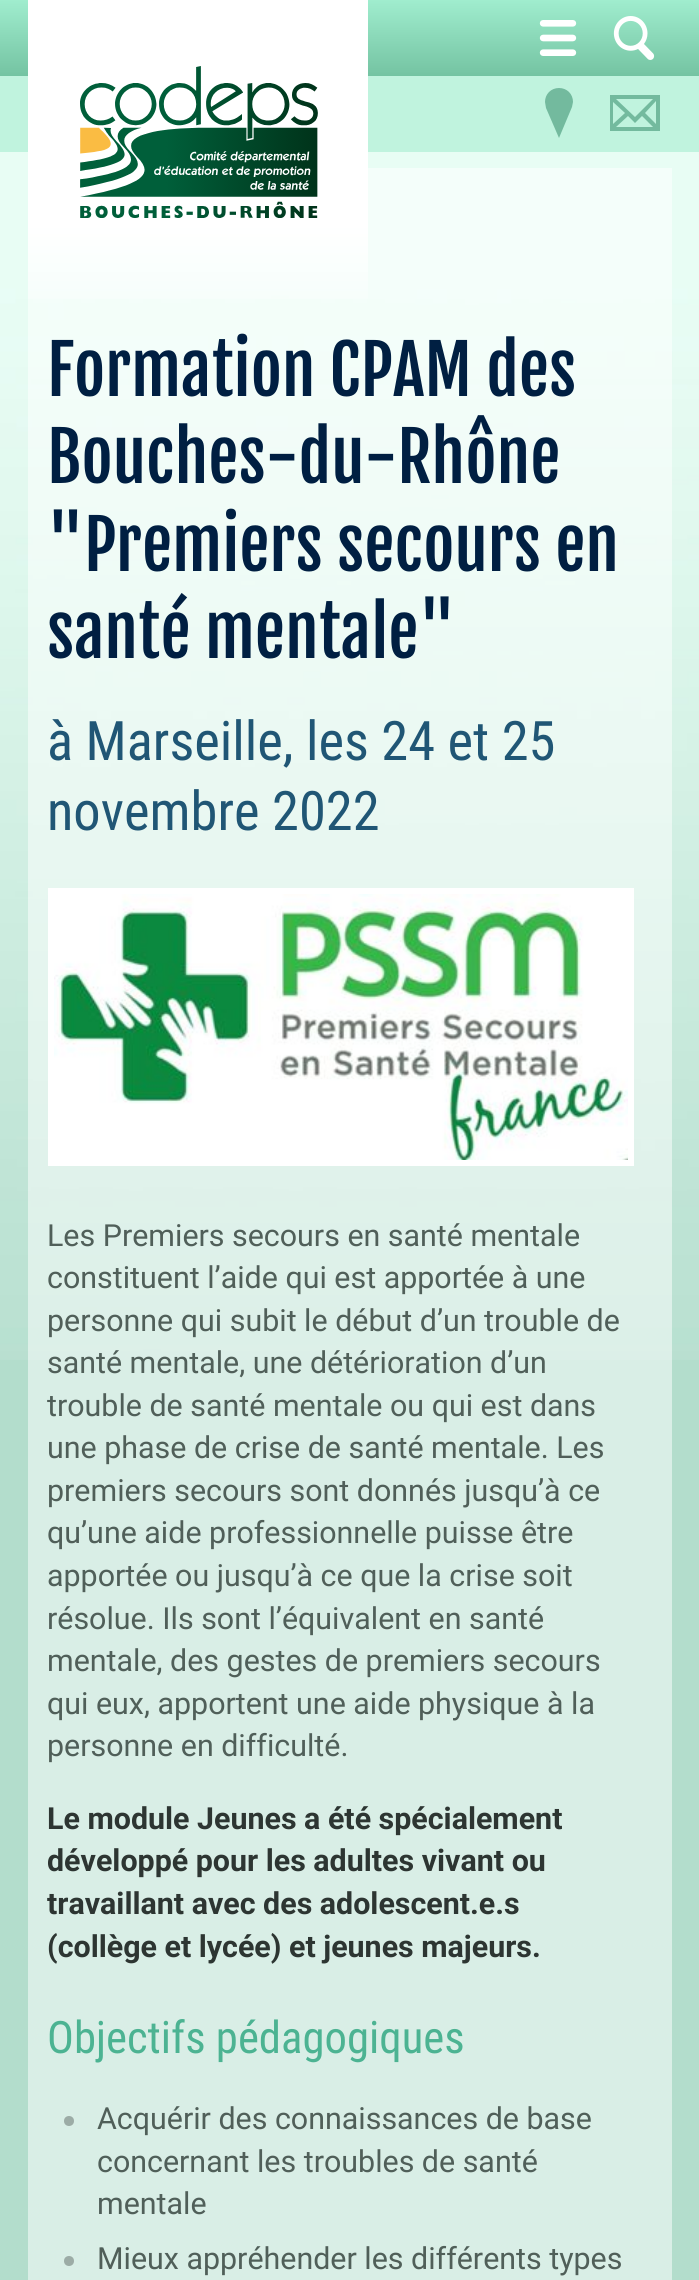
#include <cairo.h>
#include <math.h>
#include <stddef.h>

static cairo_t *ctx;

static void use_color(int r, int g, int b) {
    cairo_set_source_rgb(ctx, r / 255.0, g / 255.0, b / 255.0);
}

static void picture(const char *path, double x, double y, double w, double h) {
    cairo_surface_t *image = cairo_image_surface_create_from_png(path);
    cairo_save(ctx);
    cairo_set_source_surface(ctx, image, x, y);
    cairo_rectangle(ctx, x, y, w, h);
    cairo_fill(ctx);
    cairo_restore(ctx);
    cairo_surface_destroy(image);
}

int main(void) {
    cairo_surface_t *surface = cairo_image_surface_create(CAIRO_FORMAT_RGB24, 699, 2280);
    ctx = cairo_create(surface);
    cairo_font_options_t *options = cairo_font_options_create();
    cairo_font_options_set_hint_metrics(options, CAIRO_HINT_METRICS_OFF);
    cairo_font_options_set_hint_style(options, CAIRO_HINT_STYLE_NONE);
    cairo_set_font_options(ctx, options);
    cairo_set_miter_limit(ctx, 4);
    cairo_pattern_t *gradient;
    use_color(179, 221, 204);
    cairo_paint(ctx);
    picture("img1.png", 0, 152, 699, 1208);
    gradient = cairo_pattern_create_linear(350, 0, 350, 76);
    cairo_pattern_add_color_stop_rgba(gradient, 0, 0.627, 0.929, 0.808, 1);
    cairo_pattern_add_color_stop_rgba(gradient, 1, 0.455, 0.765, 0.635, 1);
    cairo_set_source(ctx, gradient);
    cairo_pattern_destroy(gradient);
    cairo_rectangle(ctx, 0, 0, 699, 76);
    cairo_fill(ctx);
    use_color(192, 243, 222);
    cairo_rectangle(ctx, 0, 76, 699, 76);
    cairo_fill(ctx);
    cairo_set_source_rgba(ctx, 1, 1, 1, 0.5);
    cairo_rectangle(ctx, 28, 168, 644, 2112);
    cairo_fill(ctx);
    gradient = cairo_pattern_create_linear(198, 0, 198, 320);
    cairo_pattern_add_color_stop_rgba(gradient, 0.1, 1, 1, 1, 1);
    cairo_pattern_add_color_stop_rgba(gradient, 0.7, 1, 1, 1, 1);
    cairo_pattern_add_color_stop_rgba(gradient, 1, 1, 1, 1, 0);
    cairo_set_source(ctx, gradient);
    cairo_pattern_destroy(gradient);
    cairo_rectangle(ctx, 28, 0, 340, 299);
    cairo_fill(ctx);
    picture("img2.png", 80, 66, 238, 152);
    use_color(115, 186, 158);
    cairo_new_path(ctx);
    cairo_move_to(ctx, 559, 88);
    cairo_curve_to(ctx, 551, 88, 545, 94, 545, 102);
    cairo_line_to(ctx, 546, 108);
    cairo_line_to(ctx, 559, 138);
    cairo_line_to(ctx, 572, 107);
    cairo_line_to(ctx, 573, 102);
    cairo_curve_to(ctx, 573, 94, 567, 88, 559, 88);
    cairo_close_path(ctx);
    cairo_fill(ctx);
    cairo_new_path(ctx);
    cairo_move_to(ctx, 660, 131);
    cairo_line_to(ctx, 610, 131);
    cairo_line_to(ctx, 610, 95);
    cairo_line_to(ctx, 660, 95);
    cairo_close_path(ctx);
    cairo_move_to(ctx, 613, 102);
    cairo_line_to(ctx, 613, 124);
    cairo_line_to(ctx, 625, 113);
    cairo_close_path(ctx);
    cairo_move_to(ctx, 635, 117);
    cairo_line_to(ctx, 653, 99);
    cairo_line_to(ctx, 616, 99);
    cairo_close_path(ctx);
    cairo_move_to(ctx, 653, 127);
    cairo_line_to(ctx, 642, 116);
    cairo_line_to(ctx, 635, 123);
    cairo_line_to(ctx, 628, 116);
    cairo_line_to(ctx, 616, 127);
    cairo_close_path(ctx);
    cairo_move_to(ctx, 645, 113);
    cairo_line_to(ctx, 656, 124);
    cairo_line_to(ctx, 656, 101);
    cairo_close_path(ctx);
    cairo_fill(ctx);
    picture("img3.png", 539, 20, 38, 36);
    picture("img4.png", 613, 16, 42, 44);
    cairo_select_font_face(ctx, "Fjalla One", CAIRO_FONT_SLANT_NORMAL, CAIRO_FONT_WEIGHT_NORMAL);
    cairo_set_font_size(ctx, 67.25);
    use_color(0, 31, 66);
    cairo_move_to(ctx, 47, 396);
    cairo_show_text(ctx, "Formation CPAM des");
    cairo_move_to(ctx, 47, 483);
    cairo_show_text(ctx, "Bouches-du-Rhône");
    cairo_move_to(ctx, 47, 571);
    cairo_show_text(ctx, "\"Premiers secours en");
    cairo_move_to(ctx, 47, 658);
    cairo_show_text(ctx, "santé mentale\"");
    cairo_select_font_face(ctx, "Roboto Condensed", CAIRO_FONT_SLANT_NORMAL, CAIRO_FONT_WEIGHT_NORMAL);
    cairo_set_font_size(ctx, 54.5);
    use_color(32, 86, 117);
    cairo_move_to(ctx, 47, 760);
    cairo_show_text(ctx, "à Marseille, les 24 et 25");
    cairo_move_to(ctx, 47, 830);
    cairo_show_text(ctx, "novembre 2022");
    cairo_rectangle(ctx, 51, 891, 580, 272);
    use_color(255, 255, 255);
    cairo_set_line_width(ctx, 6);
    cairo_stroke(ctx);
    picture("img5.png", 54, 894, 574, 266);
    cairo_select_font_face(ctx, "Roboto", CAIRO_FONT_SLANT_NORMAL, CAIRO_FONT_WEIGHT_NORMAL);
    cairo_set_font_size(ctx, 30.4);
    use_color(80, 95, 89);
    cairo_move_to(ctx, 47, 1246);
    cairo_show_text(ctx, "Les Premiers secours en santé mentale");
    cairo_move_to(ctx, 47, 1288);
    cairo_show_text(ctx, "constituent l’aide qui est apportée à une");
    cairo_move_to(ctx, 47, 1331);
    cairo_show_text(ctx, "personne qui subit le début d’un trouble de");
    cairo_move_to(ctx, 47, 1373);
    cairo_show_text(ctx, "santé mentale, une détérioration d’un");
    cairo_move_to(ctx, 47, 1416);
    cairo_show_text(ctx, "trouble de santé mentale ou qui est dans");
    cairo_move_to(ctx, 47, 1458);
    cairo_show_text(ctx, "une phase de crise de santé mentale. Les");
    cairo_move_to(ctx, 47, 1501);
    cairo_show_text(ctx, "premiers secours sont donnés jusqu’à ce");
    cairo_move_to(ctx, 47, 1543);
    cairo_show_text(ctx, "qu’une aide professionnelle puisse être");
    cairo_move_to(ctx, 47, 1586);
    cairo_show_text(ctx, "apportée ou jusqu’à ce que la crise soit");
    cairo_move_to(ctx, 47, 1629);
    cairo_show_text(ctx, "résolue. Ils sont l’équivalent en santé");
    cairo_move_to(ctx, 47, 1671);
    cairo_show_text(ctx, "mentale, des gestes de premiers secours");
    cairo_move_to(ctx, 47, 1714);
    cairo_show_text(ctx, "qui eux, apportent une aide physique à la");
    cairo_move_to(ctx, 47, 1756);
    cairo_show_text(ctx, "personne en difficulté.");
    cairo_select_font_face(ctx, "Roboto", CAIRO_FONT_SLANT_NORMAL, CAIRO_FONT_WEIGHT_BOLD);
    use_color(45, 53, 50);
    cairo_move_to(ctx, 47, 1829);
    cairo_show_text(ctx, "Le module Jeunes a été spécialement");
    cairo_move_to(ctx, 47, 1871);
    cairo_show_text(ctx, "développé pour les adultes vivant ou");
    cairo_move_to(ctx, 47, 1914);
    cairo_show_text(ctx, "travaillant avec des adolescent.e.s");
    cairo_move_to(ctx, 47, 1957);
    cairo_show_text(ctx, "(collège et lycée) et jeunes majeurs.");
    cairo_select_font_face(ctx, "Roboto Condensed", CAIRO_FONT_SLANT_NORMAL, CAIRO_FONT_WEIGHT_NORMAL);
    cairo_set_font_size(ctx, 44.75);
    use_color(76, 179, 146);
    cairo_move_to(ctx, 47, 2053);
    cairo_show_text(ctx, "Objectifs pédagogiques");
    use_color(156, 172, 166);
    cairo_new_path(ctx);
    cairo_arc(ctx, 69, 2121, 5, 0, 2 * M_PI);
    cairo_fill(ctx);
    cairo_select_font_face(ctx, "Roboto", CAIRO_FONT_SLANT_NORMAL, CAIRO_FONT_WEIGHT_NORMAL);
    cairo_set_font_size(ctx, 30.4);
    use_color(80, 95, 89);
    cairo_move_to(ctx, 97, 2129);
    cairo_show_text(ctx, "Acquérir des connaissances de base");
    cairo_move_to(ctx, 97, 2172);
    cairo_show_text(ctx, "concernant les troubles de santé");
    cairo_move_to(ctx, 97, 2214);
    cairo_show_text(ctx, "mentale");
    use_color(156, 172, 166);
    cairo_new_path(ctx);
    cairo_arc(ctx, 69, 2261, 5, 0, 2 * M_PI);
    cairo_fill(ctx);
    use_color(80, 95, 89);
    cairo_move_to(ctx, 97, 2269);
    cairo_show_text(ctx, "Mieux appréhender les différents types");
    cairo_surface_write_to_png(surface, "result.png");
    cairo_font_options_destroy(options);
    cairo_destroy(ctx);
    cairo_surface_destroy(surface);
    return 0;
}
